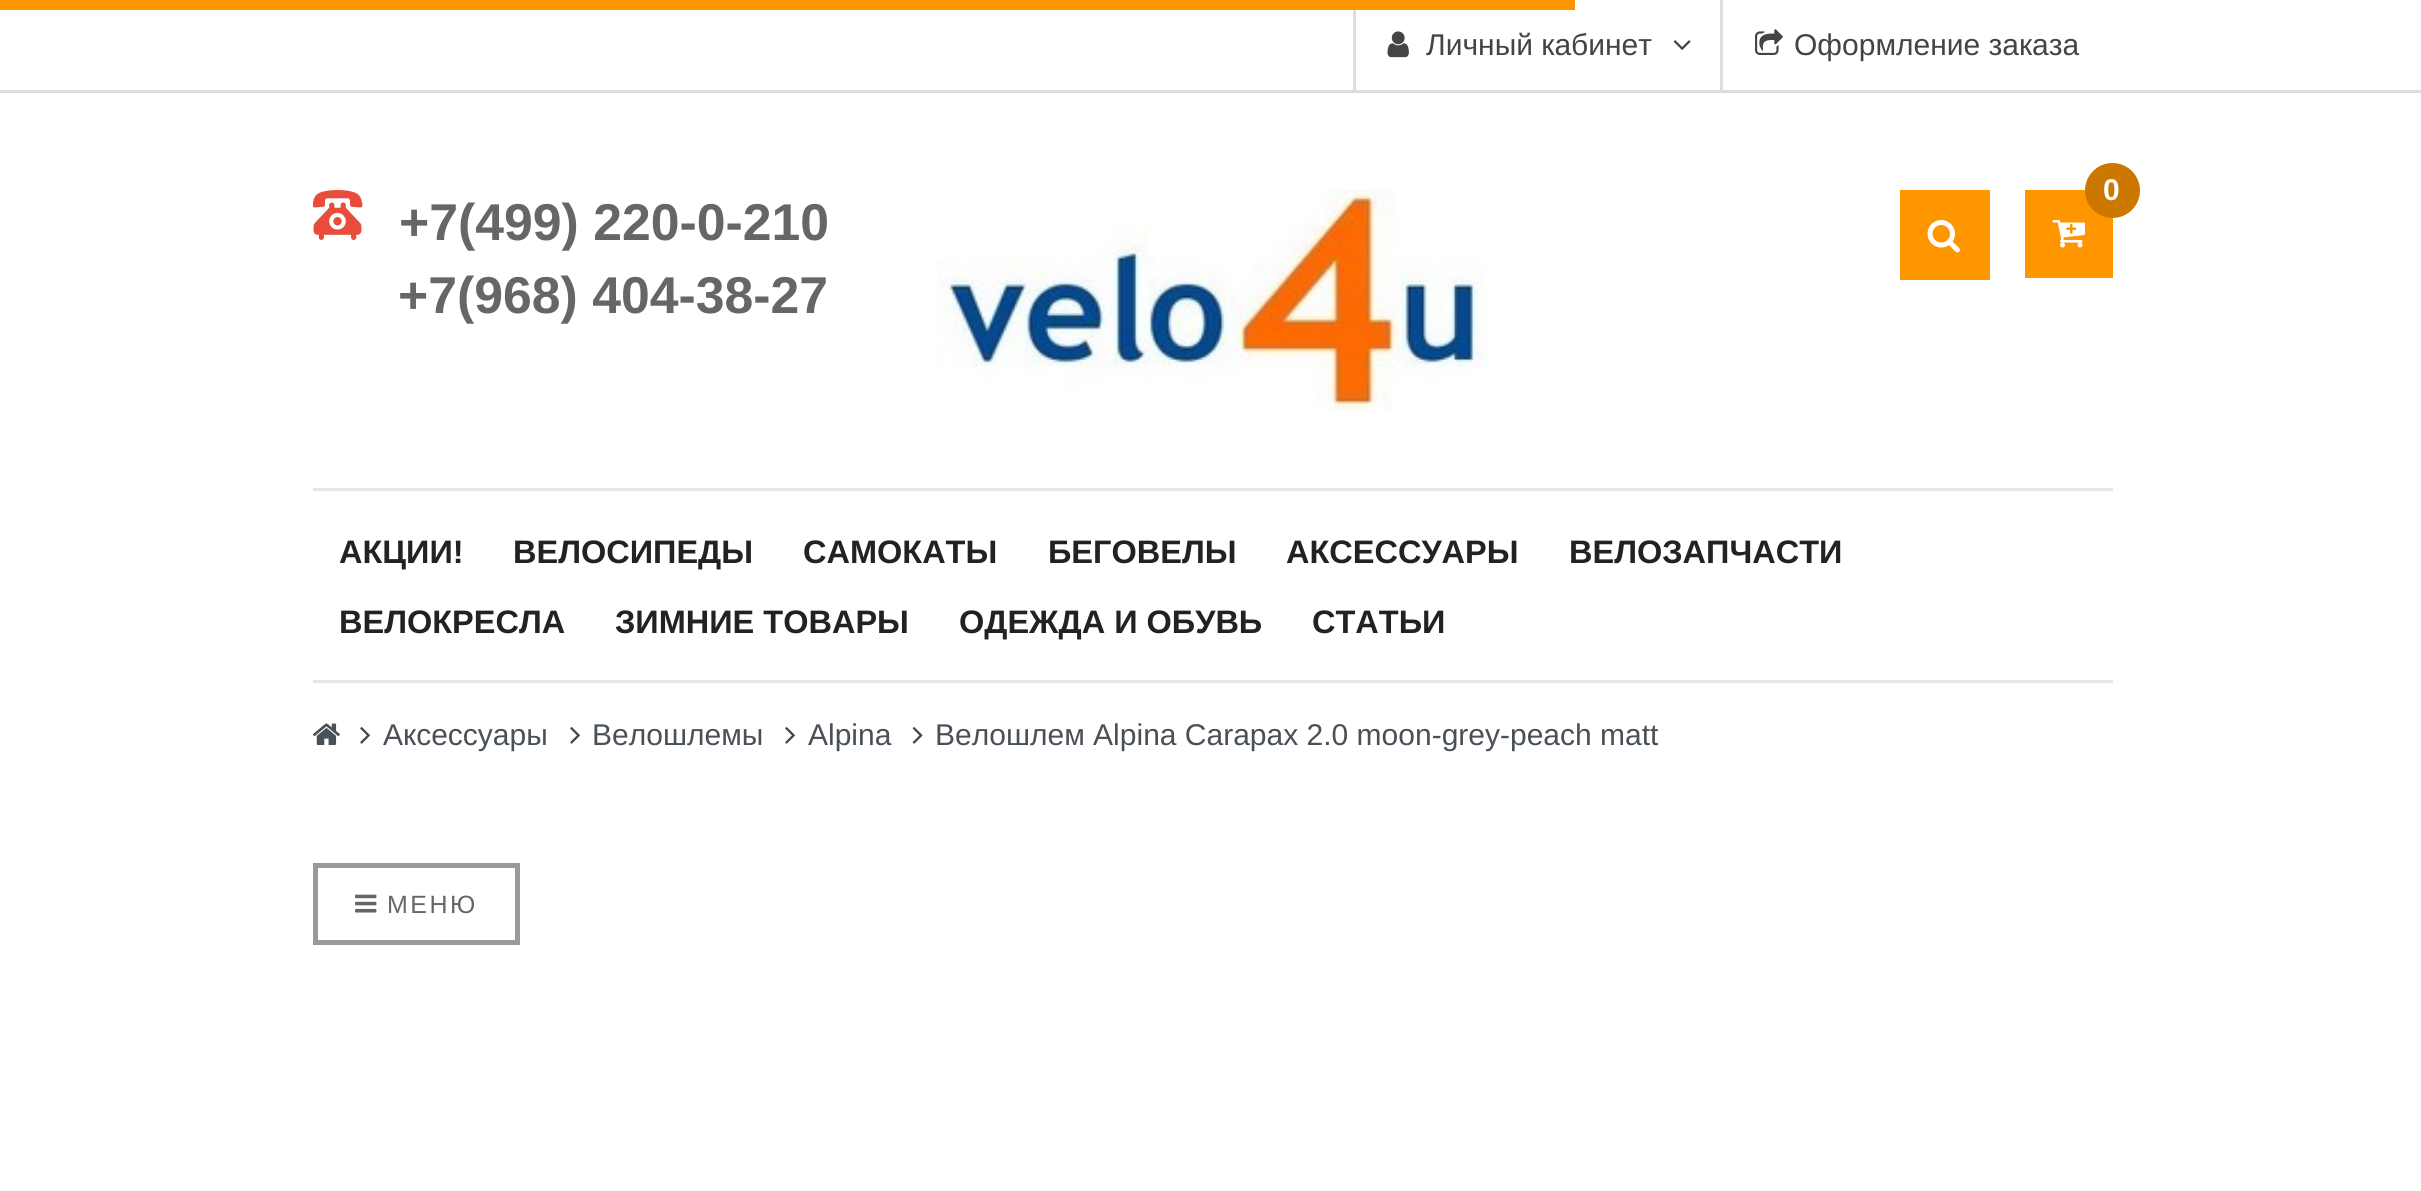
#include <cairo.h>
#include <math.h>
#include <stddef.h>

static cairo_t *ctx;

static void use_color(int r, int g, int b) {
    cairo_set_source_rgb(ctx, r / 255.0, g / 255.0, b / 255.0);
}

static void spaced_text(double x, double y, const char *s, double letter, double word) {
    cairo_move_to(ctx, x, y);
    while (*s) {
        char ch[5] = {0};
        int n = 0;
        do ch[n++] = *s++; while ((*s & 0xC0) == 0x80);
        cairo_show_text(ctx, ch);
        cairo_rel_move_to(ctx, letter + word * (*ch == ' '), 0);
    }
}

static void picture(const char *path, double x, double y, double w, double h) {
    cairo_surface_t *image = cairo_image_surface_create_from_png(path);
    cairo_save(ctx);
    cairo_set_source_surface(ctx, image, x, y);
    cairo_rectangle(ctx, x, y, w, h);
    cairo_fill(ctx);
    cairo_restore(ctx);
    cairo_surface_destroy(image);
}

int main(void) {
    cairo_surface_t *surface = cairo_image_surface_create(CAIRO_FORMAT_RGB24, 2421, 1191);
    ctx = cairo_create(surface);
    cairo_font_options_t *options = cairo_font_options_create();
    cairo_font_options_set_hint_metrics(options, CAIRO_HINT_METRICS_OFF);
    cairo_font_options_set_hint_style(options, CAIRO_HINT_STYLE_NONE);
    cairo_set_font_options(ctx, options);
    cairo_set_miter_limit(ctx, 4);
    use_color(255, 255, 255);
    cairo_paint(ctx);
    use_color(255, 150, 0);
    cairo_rectangle(ctx, 0, 0, 1575, 10);
    cairo_fill(ctx);
    use_color(221, 221, 221);
    cairo_rectangle(ctx, 0, 90, 2421, 3);
    cairo_fill(ctx);
    cairo_rectangle(ctx, 1353, 10, 3, 80);
    cairo_fill(ctx);
    picture("img1.png", 1387, 31, 22, 27);
    cairo_select_font_face(ctx, "Liberation Sans", CAIRO_FONT_SLANT_NORMAL, CAIRO_FONT_WEIGHT_NORMAL);
    cairo_set_font_size(ctx, 30);
    use_color(68, 68, 68);
    cairo_move_to(ctx, 1426, 55);
    cairo_show_text(ctx, "Личный кабинет");
    picture("img2.png", 1673, 40, 18, 10);
    use_color(221, 221, 221);
    cairo_rectangle(ctx, 1720, 0, 3, 90);
    cairo_fill(ctx);
    picture("img3.png", 1755, 29, 28, 26);
    use_color(68, 68, 68);
    cairo_move_to(ctx, 1794, 55);
    cairo_show_text(ctx, "Оформление заказа");
    picture("img4.png", 313, 190, 50, 50);
    cairo_select_font_face(ctx, "Liberation Sans", CAIRO_FONT_SLANT_NORMAL, CAIRO_FONT_WEIGHT_BOLD);
    cairo_set_font_size(ctx, 51.75);
    use_color(102, 102, 102);
    cairo_move_to(ctx, 399, 240);
    cairo_show_text(ctx, "+7(499) 220-0-210");
    cairo_move_to(ctx, 398, 313);
    cairo_show_text(ctx, "+7(968) 404-38-27");
    picture("img5.png", 937, 190, 551, 220);
    use_color(255, 150, 0);
    cairo_rectangle(ctx, 1900, 190, 90, 90);
    cairo_fill(ctx);
    picture("img6.png", 1927, 220, 33, 33);
    cairo_rectangle(ctx, 2025, 190, 88, 88);
    cairo_fill(ctx);
    use_color(204, 120, 0);
    cairo_arc(ctx, 2112.5, 190.5, 27.5, 0, 2 * M_PI);
    cairo_fill(ctx);
    cairo_set_font_size(ctx, 30);
    use_color(255, 255, 255);
    cairo_move_to(ctx, 2103, 200);
    cairo_show_text(ctx, "0");
    picture("img7.png", 2052, 220, 33, 28);
    use_color(230, 230, 230);
    cairo_rectangle(ctx, 313, 488, 1800, 3);
    cairo_fill(ctx);
    cairo_rectangle(ctx, 313, 680, 1800, 3);
    cairo_fill(ctx);
    cairo_set_font_size(ctx, 32.5);
    use_color(34, 34, 34);
    cairo_move_to(ctx, 339, 563);
    cairo_show_text(ctx, "АКЦИИ!");
    cairo_move_to(ctx, 513, 563);
    cairo_show_text(ctx, "ВЕЛОСИПЕДЫ");
    cairo_move_to(ctx, 803, 563);
    cairo_show_text(ctx, "САМОКАТЫ");
    cairo_move_to(ctx, 1048, 563);
    cairo_show_text(ctx, "БЕГОВЕЛЫ");
    cairo_move_to(ctx, 1286, 563);
    cairo_show_text(ctx, "АКСЕССУАРЫ");
    cairo_move_to(ctx, 1569, 563);
    cairo_show_text(ctx, "ВЕЛОЗАПЧАСТИ");
    cairo_move_to(ctx, 339, 633);
    cairo_show_text(ctx, "ВЕЛОКРЕСЛА");
    cairo_move_to(ctx, 615, 633);
    cairo_show_text(ctx, "ЗИМНИЕ ТОВАРЫ");
    cairo_move_to(ctx, 959, 633);
    cairo_show_text(ctx, "ОДЕЖДА И ОБУВЬ");
    cairo_move_to(ctx, 1312, 633);
    cairo_show_text(ctx, "СТАТЬИ");
    picture("img8.png", 313, 723, 27, 22);
    picture("img9.png", 360, 727, 10, 17);
    cairo_select_font_face(ctx, "Liberation Sans", CAIRO_FONT_SLANT_NORMAL, CAIRO_FONT_WEIGHT_NORMAL);
    cairo_set_font_size(ctx, 30);
    use_color(73, 80, 87);
    cairo_move_to(ctx, 383, 745);
    cairo_show_text(ctx, "Аксессуары");
    picture("img9.png", 570, 727, 10, 17);
    cairo_move_to(ctx, 592, 745);
    cairo_show_text(ctx, "Велошлемы");
    picture("img9.png", 785, 727, 10, 17);
    cairo_move_to(ctx, 808, 745);
    cairo_show_text(ctx, "Alpina");
    picture("img10.png", 912, 727, 11, 17);
    cairo_move_to(ctx, 935, 745);
    cairo_show_text(ctx, "Велошлем Alpina Carapax 2.0 moon-grey-peach matt");
    cairo_rectangle(ctx, 315.5, 865.5, 202, 77);
    use_color(153, 153, 153);
    cairo_set_line_width(ctx, 5);
    cairo_stroke(ctx);
    picture("img11.png", 355, 894, 22, 19);
    cairo_set_font_size(ctx, 25);
    use_color(102, 102, 102);
    spaced_text(387, 913, "МЕНЮ", 2.5, 0);
    cairo_surface_write_to_png(surface, "result.png");
    cairo_font_options_destroy(options);
    cairo_destroy(ctx);
    cairo_surface_destroy(surface);
    return 0;
}
